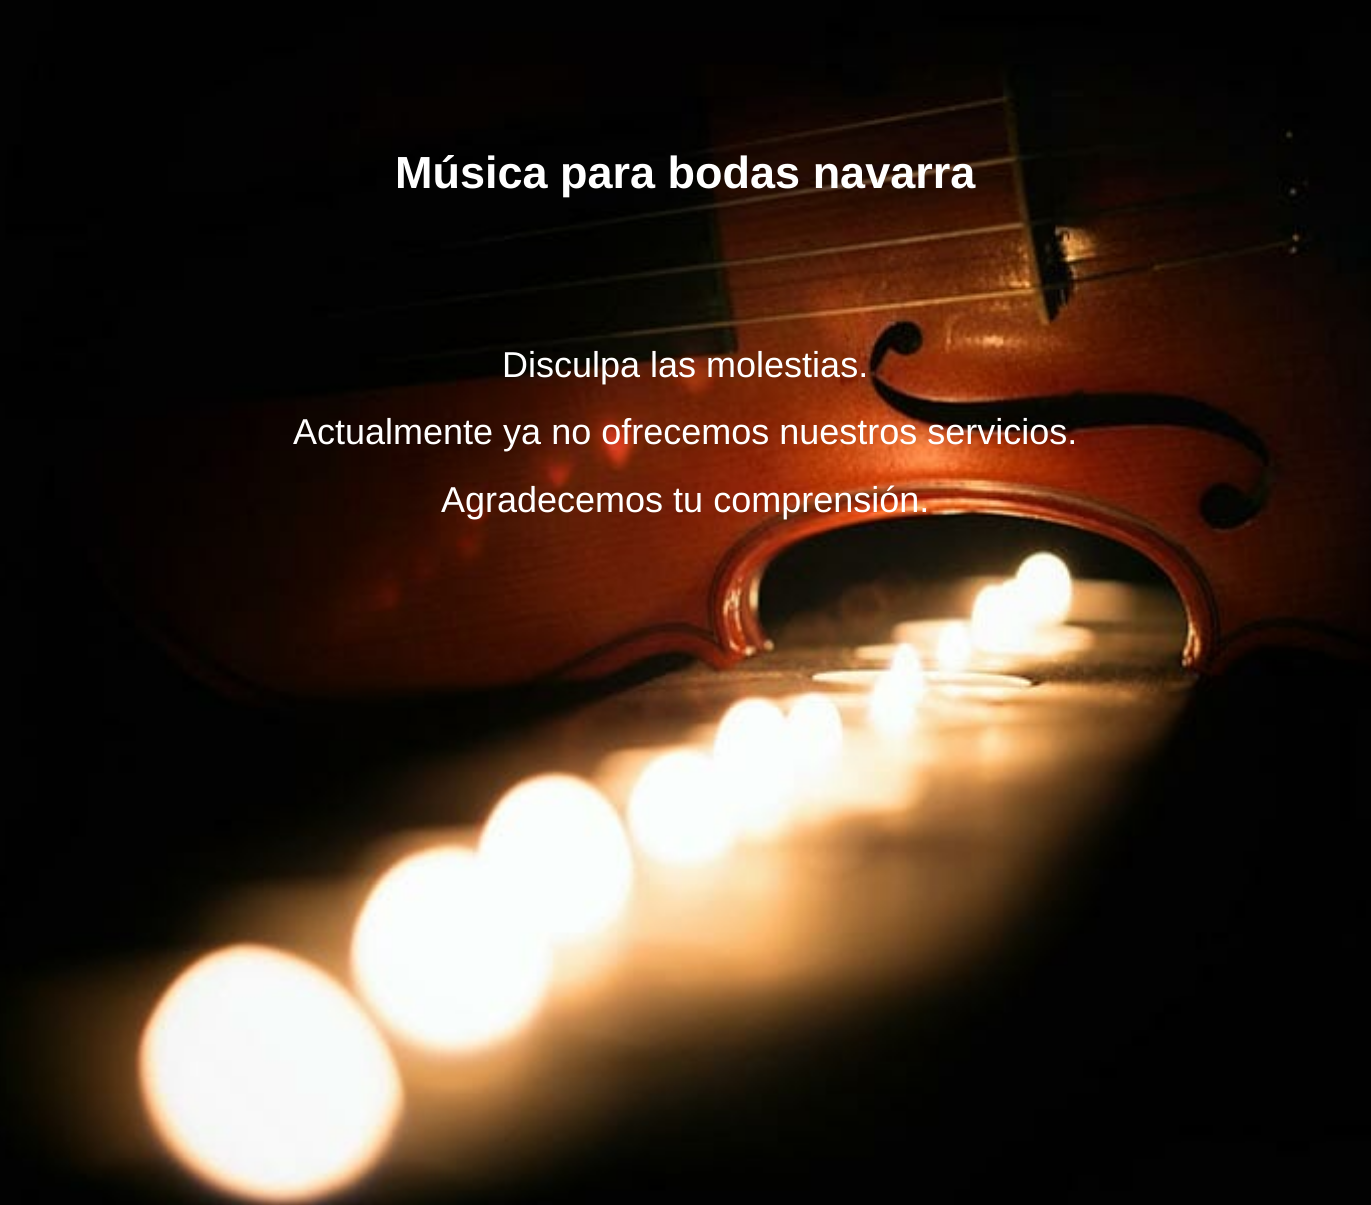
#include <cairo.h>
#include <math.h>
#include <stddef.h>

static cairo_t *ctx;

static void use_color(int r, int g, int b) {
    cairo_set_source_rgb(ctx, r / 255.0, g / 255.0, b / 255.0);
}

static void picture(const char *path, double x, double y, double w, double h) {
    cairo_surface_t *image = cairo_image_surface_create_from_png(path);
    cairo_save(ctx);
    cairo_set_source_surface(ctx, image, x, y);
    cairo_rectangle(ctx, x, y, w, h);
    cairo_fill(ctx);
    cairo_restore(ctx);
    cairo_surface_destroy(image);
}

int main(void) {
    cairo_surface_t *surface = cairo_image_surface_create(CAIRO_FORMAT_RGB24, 1371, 1205);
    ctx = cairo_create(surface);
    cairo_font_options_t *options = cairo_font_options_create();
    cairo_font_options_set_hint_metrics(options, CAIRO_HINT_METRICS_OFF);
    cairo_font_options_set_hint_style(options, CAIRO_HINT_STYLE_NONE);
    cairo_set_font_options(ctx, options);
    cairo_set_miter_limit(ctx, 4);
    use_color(255, 255, 255);
    cairo_paint(ctx);
    picture("img1.png", 0, 0, 1371, 1205);
    cairo_select_font_face(ctx, "Liberation Sans", CAIRO_FONT_SLANT_NORMAL, CAIRO_FONT_WEIGHT_BOLD);
    cairo_set_font_size(ctx, 45);
    use_color(255, 255, 255);
    cairo_move_to(ctx, 395, 188);
    cairo_show_text(ctx, "Música para bodas navarra");
    cairo_select_font_face(ctx, "Liberation Sans", CAIRO_FONT_SLANT_NORMAL, CAIRO_FONT_WEIGHT_NORMAL);
    cairo_set_font_size(ctx, 36);
    cairo_move_to(ctx, 502, 377);
    cairo_show_text(ctx, "Disculpa las molestias.");
    cairo_move_to(ctx, 293, 444);
    cairo_show_text(ctx, "Actualmente ya no ofrecemos nuestros servicios.");
    cairo_move_to(ctx, 441, 512);
    cairo_show_text(ctx, "Agradecemos tu comprensión.");
    cairo_surface_write_to_png(surface, "result.png");
    cairo_font_options_destroy(options);
    cairo_destroy(ctx);
    cairo_surface_destroy(surface);
    return 0;
}
